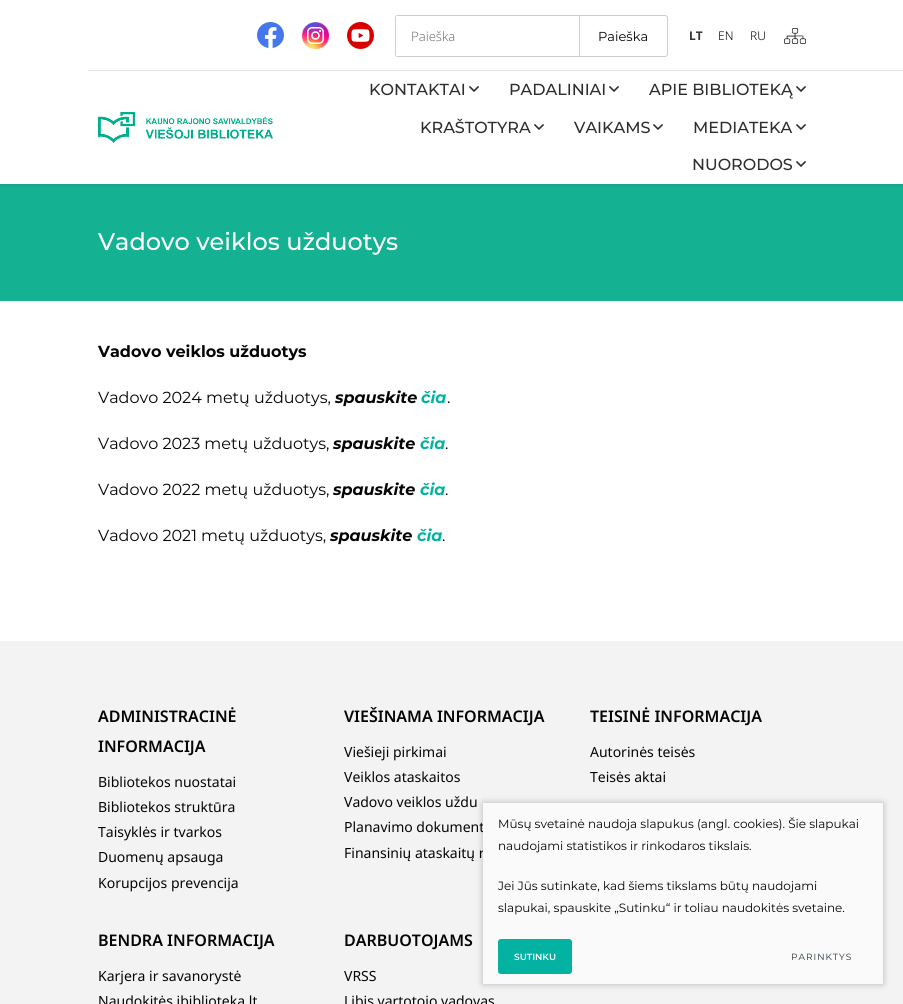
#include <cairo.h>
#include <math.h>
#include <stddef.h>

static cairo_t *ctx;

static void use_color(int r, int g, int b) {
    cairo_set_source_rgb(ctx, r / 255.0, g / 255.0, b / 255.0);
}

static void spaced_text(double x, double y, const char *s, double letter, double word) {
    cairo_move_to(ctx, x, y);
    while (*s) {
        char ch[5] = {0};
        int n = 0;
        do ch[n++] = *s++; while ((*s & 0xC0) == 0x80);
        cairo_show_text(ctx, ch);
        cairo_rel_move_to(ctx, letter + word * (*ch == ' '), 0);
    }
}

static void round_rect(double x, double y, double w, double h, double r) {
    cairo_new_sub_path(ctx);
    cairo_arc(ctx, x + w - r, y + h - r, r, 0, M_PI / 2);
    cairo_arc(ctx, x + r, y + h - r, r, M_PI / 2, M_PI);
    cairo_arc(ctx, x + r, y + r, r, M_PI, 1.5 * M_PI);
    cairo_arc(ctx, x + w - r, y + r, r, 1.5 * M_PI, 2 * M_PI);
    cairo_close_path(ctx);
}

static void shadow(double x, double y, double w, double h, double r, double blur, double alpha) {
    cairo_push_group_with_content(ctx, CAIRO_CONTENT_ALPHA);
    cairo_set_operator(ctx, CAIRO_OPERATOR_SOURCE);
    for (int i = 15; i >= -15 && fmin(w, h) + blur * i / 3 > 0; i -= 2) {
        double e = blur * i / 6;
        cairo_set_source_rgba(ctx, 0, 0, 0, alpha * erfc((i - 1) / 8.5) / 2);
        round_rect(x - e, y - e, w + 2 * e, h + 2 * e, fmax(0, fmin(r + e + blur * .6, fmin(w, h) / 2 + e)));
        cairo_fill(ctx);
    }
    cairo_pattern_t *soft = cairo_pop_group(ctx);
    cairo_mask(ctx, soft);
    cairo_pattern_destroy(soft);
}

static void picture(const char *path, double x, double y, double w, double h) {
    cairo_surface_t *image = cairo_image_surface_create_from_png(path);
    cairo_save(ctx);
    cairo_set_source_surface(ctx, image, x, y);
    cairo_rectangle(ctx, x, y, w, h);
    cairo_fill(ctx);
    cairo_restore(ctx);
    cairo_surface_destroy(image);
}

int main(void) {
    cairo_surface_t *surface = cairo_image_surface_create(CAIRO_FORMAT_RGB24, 903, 1004);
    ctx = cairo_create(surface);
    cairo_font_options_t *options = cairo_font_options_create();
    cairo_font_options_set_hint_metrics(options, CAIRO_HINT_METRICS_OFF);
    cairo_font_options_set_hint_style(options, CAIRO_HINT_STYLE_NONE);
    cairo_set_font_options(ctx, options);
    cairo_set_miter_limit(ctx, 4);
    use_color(255, 255, 255);
    cairo_paint(ctx);
    use_color(20, 177, 146);
    cairo_rectangle(ctx, 0, 184, 903, 117);
    cairo_fill(ctx);
    cairo_save(ctx);
    cairo_rectangle(ctx, 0, 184, 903, 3);
    cairo_clip(ctx);
    use_color(0, 0, 0);
    shadow(0, 0, 903, 184, 0, 2.5, 0.15);
    cairo_restore(ctx);
    picture("img1.png", 98, 112, 175, 31);
    picture("img2.png", 257, 22, 27, 26);
    picture("img3.png", 302, 22, 27, 27);
    picture("img4.png", 347, 22, 27, 27);
    round_rect(395.5, 15.5, 272, 41, 2.5);
    use_color(206, 206, 206);
    cairo_set_line_width(ctx, 1);
    cairo_stroke(ctx);
    use_color(255, 255, 255);
    cairo_rectangle(ctx, 396, 16, 2, 40);
    cairo_fill(ctx);
    cairo_select_font_face(ctx, "Noto Sans Light", CAIRO_FONT_SLANT_NORMAL, CAIRO_FONT_WEIGHT_NORMAL);
    cairo_set_font_size(ctx, 13);
    use_color(117, 117, 117);
    cairo_move_to(ctx, 411, 41);
    cairo_show_text(ctx, "Paieška");
    use_color(206, 206, 206);
    cairo_rectangle(ctx, 579, 16, 1, 40);
    cairo_fill(ctx);
    cairo_select_font_face(ctx, "Montserrat", CAIRO_FONT_SLANT_NORMAL, CAIRO_FONT_WEIGHT_NORMAL);
    use_color(5, 5, 5);
    cairo_move_to(ctx, 598, 41);
    cairo_show_text(ctx, "Paieška");
    cairo_select_font_face(ctx, "Noto Sans", CAIRO_FONT_SLANT_NORMAL, CAIRO_FONT_WEIGHT_BOLD);
    cairo_set_font_size(ctx, 12);
    use_color(55, 55, 55);
    cairo_move_to(ctx, 689, 40);
    cairo_show_text(ctx, "LT");
    cairo_select_font_face(ctx, "Noto Sans Light", CAIRO_FONT_SLANT_NORMAL, CAIRO_FONT_WEIGHT_NORMAL);
    use_color(5, 5, 5);
    cairo_move_to(ctx, 718, 40);
    cairo_show_text(ctx, "EN");
    cairo_move_to(ctx, 750, 40);
    cairo_show_text(ctx, "RU");
    picture("img5.png", 784, 28, 22, 16);
    use_color(229, 229, 229);
    cairo_rectangle(ctx, 88, 70, 815, 1);
    cairo_fill(ctx);
    cairo_select_font_face(ctx, "Montserrat Medium", CAIRO_FONT_SLANT_NORMAL, CAIRO_FONT_WEIGHT_NORMAL);
    cairo_set_font_size(ctx, 16);
    use_color(45, 45, 45);
    cairo_move_to(ctx, 369, 95);
    cairo_show_text(ctx, "KONTAKTAI");
    picture("img6.png", 469, 86, 10, 6);
    cairo_move_to(ctx, 509, 95);
    cairo_show_text(ctx, "PADALINIAI");
    picture("img6.png", 609, 86, 10, 6);
    cairo_move_to(ctx, 649, 95);
    cairo_show_text(ctx, "APIE BIBLIOTEKĄ");
    picture("img6.png", 796, 86, 10, 6);
    cairo_move_to(ctx, 420, 133);
    cairo_show_text(ctx, "KRAŠTOTYRA");
    picture("img6.png", 534, 124, 10, 6);
    cairo_move_to(ctx, 574, 133);
    cairo_show_text(ctx, "VAIKAMS");
    picture("img6.png", 653, 124, 10, 6);
    cairo_move_to(ctx, 693, 133);
    cairo_show_text(ctx, "MEDIATEKA");
    picture("img6.png", 796, 124, 10, 6);
    cairo_move_to(ctx, 692, 170);
    cairo_show_text(ctx, "NUORODOS");
    picture("img6.png", 796, 161, 10, 6);
    cairo_set_font_size(ctx, 24);
    use_color(253, 254, 254);
    cairo_move_to(ctx, 98, 250);
    cairo_show_text(ctx, "Vadovo veiklos užduotys");
    cairo_select_font_face(ctx, "Montserrat", CAIRO_FONT_SLANT_NORMAL, CAIRO_FONT_WEIGHT_BOLD);
    cairo_set_font_size(ctx, 16);
    use_color(5, 5, 5);
    cairo_move_to(ctx, 98, 357);
    cairo_show_text(ctx, "Vadovo veiklos užduotys");
    cairo_select_font_face(ctx, "Montserrat", CAIRO_FONT_SLANT_NORMAL, CAIRO_FONT_WEIGHT_NORMAL);
    cairo_move_to(ctx, 98, 403);
    cairo_show_text(ctx, "Vadovo 2024 metų užduotys,");
    cairo_select_font_face(ctx, "Montserrat", CAIRO_FONT_SLANT_ITALIC, CAIRO_FONT_WEIGHT_BOLD);
    cairo_move_to(ctx, 335, 403);
    cairo_show_text(ctx, "spauskite");
    use_color(3, 178, 161);
    cairo_move_to(ctx, 421, 403);
    cairo_show_text(ctx, "čia");
    cairo_select_font_face(ctx, "Montserrat", CAIRO_FONT_SLANT_NORMAL, CAIRO_FONT_WEIGHT_NORMAL);
    use_color(5, 5, 5);
    cairo_move_to(ctx, 447, 403);
    cairo_show_text(ctx, ".");
    cairo_move_to(ctx, 98, 449);
    cairo_show_text(ctx, "Vadovo 2023 metų užduotys,");
    cairo_select_font_face(ctx, "Montserrat", CAIRO_FONT_SLANT_ITALIC, CAIRO_FONT_WEIGHT_BOLD);
    cairo_move_to(ctx, 333, 449);
    cairo_show_text(ctx, "spauskite");
    use_color(3, 178, 161);
    cairo_move_to(ctx, 420, 449);
    cairo_show_text(ctx, "čia");
    cairo_select_font_face(ctx, "Montserrat", CAIRO_FONT_SLANT_NORMAL, CAIRO_FONT_WEIGHT_NORMAL);
    use_color(5, 5, 5);
    cairo_move_to(ctx, 445, 449);
    cairo_show_text(ctx, ".");
    cairo_move_to(ctx, 98, 495);
    cairo_show_text(ctx, "Vadovo 2022 metų užduotys,");
    cairo_select_font_face(ctx, "Montserrat", CAIRO_FONT_SLANT_ITALIC, CAIRO_FONT_WEIGHT_BOLD);
    cairo_move_to(ctx, 333, 495);
    cairo_show_text(ctx, "spauskite");
    use_color(3, 178, 161);
    cairo_move_to(ctx, 420, 495);
    cairo_show_text(ctx, "čia");
    cairo_select_font_face(ctx, "Montserrat", CAIRO_FONT_SLANT_NORMAL, CAIRO_FONT_WEIGHT_NORMAL);
    use_color(5, 5, 5);
    cairo_move_to(ctx, 445, 495);
    cairo_show_text(ctx, ".");
    cairo_move_to(ctx, 98, 541);
    cairo_show_text(ctx, "Vadovo 2021 metų užduotys,");
    cairo_select_font_face(ctx, "Montserrat", CAIRO_FONT_SLANT_ITALIC, CAIRO_FONT_WEIGHT_BOLD);
    cairo_move_to(ctx, 330, 541);
    cairo_show_text(ctx, "spauskite");
    use_color(3, 178, 161);
    cairo_move_to(ctx, 417, 541);
    cairo_show_text(ctx, "čia");
    cairo_select_font_face(ctx, "Montserrat", CAIRO_FONT_SLANT_NORMAL, CAIRO_FONT_WEIGHT_NORMAL);
    use_color(5, 5, 5);
    cairo_move_to(ctx, 442, 541);
    cairo_show_text(ctx, ".");
    use_color(243, 243, 243);
    cairo_rectangle(ctx, 0, 641, 903, 363);
    cairo_fill(ctx);
    cairo_select_font_face(ctx, "Noto Sans SemiBold", CAIRO_FONT_SLANT_NORMAL, CAIRO_FONT_WEIGHT_NORMAL);
    use_color(5, 5, 5);
    cairo_move_to(ctx, 98, 722);
    cairo_show_text(ctx, "ADMINISTRACINĖ");
    cairo_move_to(ctx, 98, 752);
    cairo_show_text(ctx, "INFORMACIJA");
    cairo_select_font_face(ctx, "Noto Sans", CAIRO_FONT_SLANT_NORMAL, CAIRO_FONT_WEIGHT_NORMAL);
    cairo_set_font_size(ctx, 14);
    cairo_move_to(ctx, 98, 787);
    cairo_show_text(ctx, "Bibliotekos nuostatai");
    cairo_move_to(ctx, 98, 812);
    cairo_show_text(ctx, "Bibliotekos struktūra");
    cairo_move_to(ctx, 98, 837);
    cairo_show_text(ctx, "Taisyklės ir tvarkos");
    cairo_move_to(ctx, 98, 862);
    cairo_show_text(ctx, "Duomenų apsauga");
    cairo_move_to(ctx, 98, 888);
    cairo_show_text(ctx, "Korupcijos prevencija");
    cairo_select_font_face(ctx, "Noto Sans SemiBold", CAIRO_FONT_SLANT_NORMAL, CAIRO_FONT_WEIGHT_NORMAL);
    cairo_set_font_size(ctx, 16);
    cairo_move_to(ctx, 344, 722);
    cairo_show_text(ctx, "VIEŠINAMA INFORMACIJA");
    cairo_select_font_face(ctx, "Noto Sans", CAIRO_FONT_SLANT_NORMAL, CAIRO_FONT_WEIGHT_NORMAL);
    cairo_set_font_size(ctx, 14);
    cairo_move_to(ctx, 344, 757);
    cairo_show_text(ctx, "Viešieji pirkimai");
    cairo_move_to(ctx, 344, 782);
    cairo_show_text(ctx, "Veiklos ataskaitos");
    cairo_move_to(ctx, 344, 807);
    cairo_show_text(ctx, "Vadovo veiklos uždu");
    cairo_move_to(ctx, 344, 832);
    cairo_show_text(ctx, "Planavimo dokument");
    cairo_move_to(ctx, 344, 858);
    cairo_show_text(ctx, "Finansinių ataskaitų r");
    cairo_select_font_face(ctx, "Noto Sans SemiBold", CAIRO_FONT_SLANT_NORMAL, CAIRO_FONT_WEIGHT_NORMAL);
    cairo_set_font_size(ctx, 16);
    cairo_move_to(ctx, 590, 722);
    cairo_show_text(ctx, "TEISINĖ INFORMACIJA");
    cairo_select_font_face(ctx, "Noto Sans", CAIRO_FONT_SLANT_NORMAL, CAIRO_FONT_WEIGHT_NORMAL);
    cairo_set_font_size(ctx, 14);
    cairo_move_to(ctx, 590, 757);
    cairo_show_text(ctx, "Autorinės teisės");
    cairo_move_to(ctx, 590, 782);
    cairo_show_text(ctx, "Teisės aktai");
    cairo_select_font_face(ctx, "Noto Sans SemiBold", CAIRO_FONT_SLANT_NORMAL, CAIRO_FONT_WEIGHT_NORMAL);
    cairo_set_font_size(ctx, 16);
    cairo_move_to(ctx, 98, 946);
    cairo_show_text(ctx, "BENDRA INFORMACIJA");
    cairo_select_font_face(ctx, "Noto Sans", CAIRO_FONT_SLANT_NORMAL, CAIRO_FONT_WEIGHT_NORMAL);
    cairo_set_font_size(ctx, 14);
    cairo_move_to(ctx, 98, 981);
    cairo_show_text(ctx, "Karjera ir savanorystė");
    cairo_move_to(ctx, 98, 1006);
    cairo_show_text(ctx, "Naudokitės ibiblioteka.lt");
    cairo_select_font_face(ctx, "Noto Sans SemiBold", CAIRO_FONT_SLANT_NORMAL, CAIRO_FONT_WEIGHT_NORMAL);
    cairo_set_font_size(ctx, 16);
    cairo_move_to(ctx, 344, 946);
    cairo_show_text(ctx, "DARBUOTOJAMS");
    cairo_select_font_face(ctx, "Noto Sans", CAIRO_FONT_SLANT_NORMAL, CAIRO_FONT_WEIGHT_NORMAL);
    cairo_set_font_size(ctx, 14);
    cairo_move_to(ctx, 344, 981);
    cairo_show_text(ctx, "VRSS");
    cairo_move_to(ctx, 344, 1006);
    cairo_show_text(ctx, "Libis vartotojo vadovas");
    use_color(0, 0, 0);
    shadow(483, 803, 400, 181, 0, 3.5, 0.25);
    use_color(250, 250, 250);
    cairo_rectangle(ctx, 483, 803, 400, 181);
    cairo_fill(ctx);
    cairo_select_font_face(ctx, "Montserrat", CAIRO_FONT_SLANT_NORMAL, CAIRO_FONT_WEIGHT_NORMAL);
    cairo_set_font_size(ctx, 12);
    use_color(5, 5, 5);
    cairo_move_to(ctx, 498, 828);
    cairo_show_text(ctx, "Mūsų svetainė naudoja slapukus (angl. cookies). Šie slapukai");
    cairo_move_to(ctx, 498, 850);
    cairo_show_text(ctx, "naudojami statistikos ir rinkodaros tikslais.");
    cairo_move_to(ctx, 498, 890);
    cairo_show_text(ctx, "Jei Jūs sutinkate, kad šiems tikslams būtų naudojami");
    cairo_move_to(ctx, 498, 912);
    cairo_show_text(ctx, "slapukai, spauskite „Sutinku“ ir toliau naudokitės svetaine.");
    use_color(3, 178, 161);
    round_rect(498, 939, 74, 35, 3);
    cairo_fill(ctx);
    cairo_select_font_face(ctx, "Montserrat SemiBold", CAIRO_FONT_SLANT_NORMAL, CAIRO_FONT_WEIGHT_NORMAL);
    cairo_set_font_size(ctx, 9);
    use_color(253, 254, 254);
    cairo_move_to(ctx, 514, 960);
    cairo_show_text(ctx, "SUTINKU");
    cairo_select_font_face(ctx, "Montserrat", CAIRO_FONT_SLANT_NORMAL, CAIRO_FONT_WEIGHT_NORMAL);
    use_color(38, 50, 56);
    spaced_text(791, 960, "PARINKTYS", 1, 0);
    cairo_surface_write_to_png(surface, "result.png");
    cairo_font_options_destroy(options);
    cairo_destroy(ctx);
    cairo_surface_destroy(surface);
    return 0;
}
